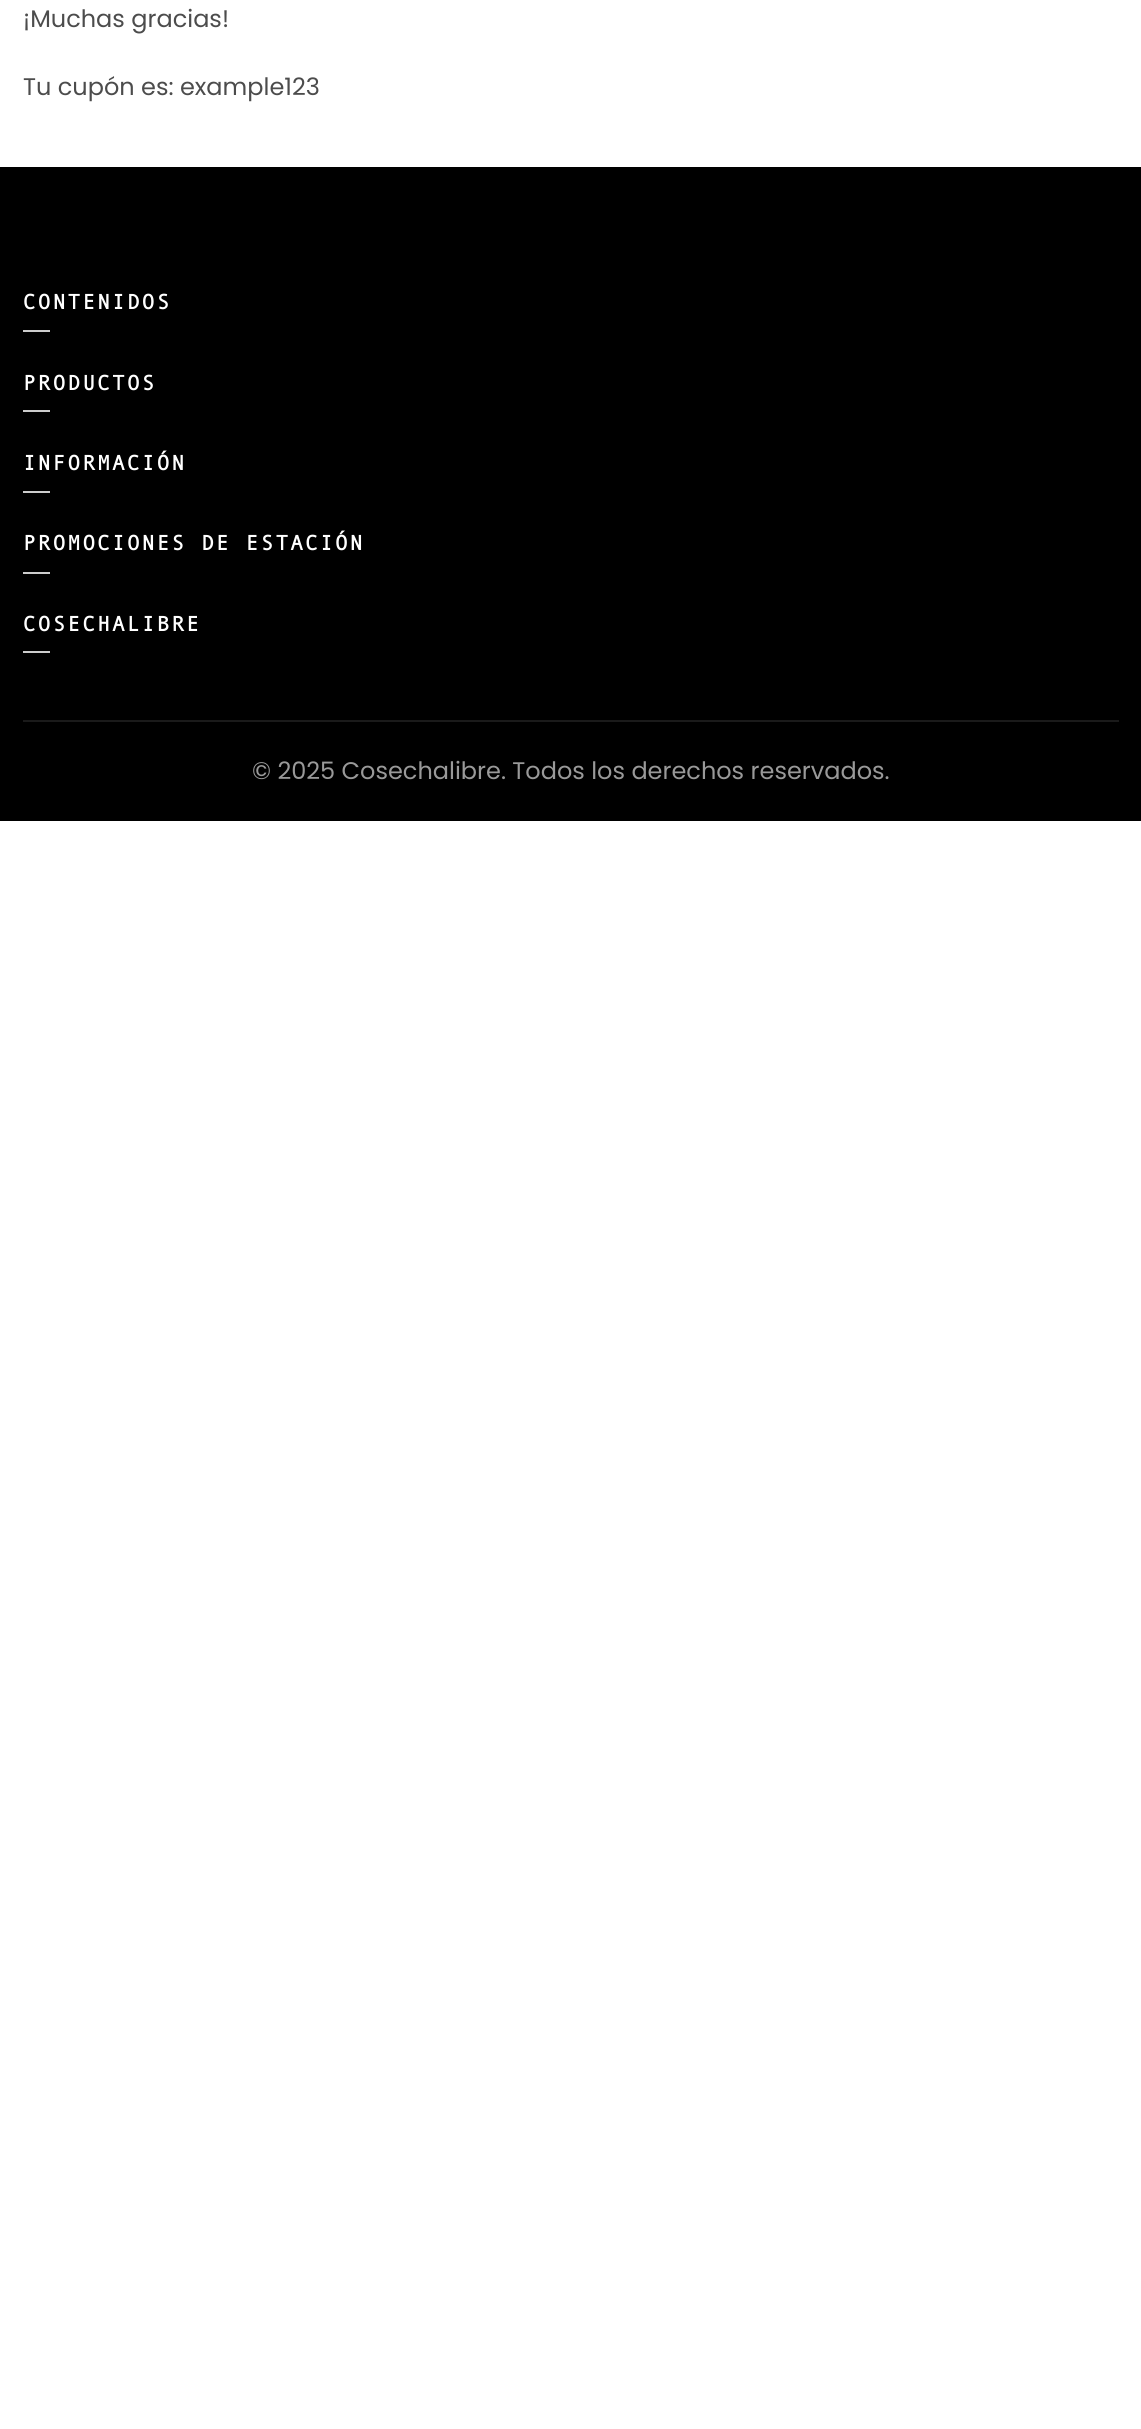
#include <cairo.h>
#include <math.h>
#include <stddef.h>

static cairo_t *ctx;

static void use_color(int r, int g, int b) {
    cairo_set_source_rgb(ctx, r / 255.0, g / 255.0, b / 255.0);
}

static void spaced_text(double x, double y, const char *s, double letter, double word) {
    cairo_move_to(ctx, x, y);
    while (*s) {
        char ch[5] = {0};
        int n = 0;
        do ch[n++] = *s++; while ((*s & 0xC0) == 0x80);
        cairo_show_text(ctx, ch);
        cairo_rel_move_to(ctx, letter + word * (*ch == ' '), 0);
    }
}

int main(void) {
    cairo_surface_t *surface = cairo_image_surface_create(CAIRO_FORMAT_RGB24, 1141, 2429);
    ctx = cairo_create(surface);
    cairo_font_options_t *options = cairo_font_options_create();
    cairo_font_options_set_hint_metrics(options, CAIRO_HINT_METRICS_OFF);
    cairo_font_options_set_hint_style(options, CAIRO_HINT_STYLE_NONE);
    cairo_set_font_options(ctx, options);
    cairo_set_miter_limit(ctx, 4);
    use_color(255, 255, 255);
    cairo_paint(ctx);
    cairo_select_font_face(ctx, "Poppins", CAIRO_FONT_SLANT_NORMAL, CAIRO_FONT_WEIGHT_NORMAL);
    cairo_set_font_size(ctx, 24);
    use_color(76, 76, 76);
    cairo_move_to(ctx, 23, 27);
    cairo_show_text(ctx, "¡Muchas gracias!");
    cairo_move_to(ctx, 23, 95);
    cairo_show_text(ctx, "Tu cupón es: example123");
    use_color(0, 0, 0);
    cairo_rectangle(ctx, 0, 167, 1141, 654);
    cairo_fill(ctx);
    cairo_select_font_face(ctx, "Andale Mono", CAIRO_FONT_SLANT_NORMAL, CAIRO_FONT_WEIGHT_BOLD);
    cairo_set_font_size(ctx, 21);
    use_color(255, 255, 255);
    spaced_text(23, 309, "CONTENIDOS", 2.25, 0);
    use_color(204, 204, 204);
    cairo_rectangle(ctx, 23, 330, 27, 2);
    cairo_fill(ctx);
    use_color(255, 255, 255);
    spaced_text(23, 390, "PRODUCTOS", 2.25, 0);
    use_color(204, 204, 204);
    cairo_rectangle(ctx, 23, 410, 27, 2);
    cairo_fill(ctx);
    use_color(255, 255, 255);
    spaced_text(23, 470, "INFORMACIÓN", 2.25, 0);
    use_color(204, 204, 204);
    cairo_rectangle(ctx, 23, 491, 27, 2);
    cairo_fill(ctx);
    use_color(255, 255, 255);
    spaced_text(23, 550, "PROMOCIONES DE ESTACIÓN", 2.25, 0);
    use_color(204, 204, 204);
    cairo_rectangle(ctx, 23, 572, 27, 2);
    cairo_fill(ctx);
    use_color(255, 255, 255);
    spaced_text(23, 631, "COSECHALIBRE", 2.25, 0);
    use_color(204, 204, 204);
    cairo_rectangle(ctx, 23, 651, 27, 2);
    cairo_fill(ctx);
    use_color(26, 26, 26);
    cairo_rectangle(ctx, 23, 720, 1096, 2);
    cairo_fill(ctx);
    cairo_select_font_face(ctx, "Poppins", CAIRO_FONT_SLANT_NORMAL, CAIRO_FONT_WEIGHT_NORMAL);
    cairo_set_font_size(ctx, 24);
    use_color(153, 153, 153);
    cairo_move_to(ctx, 252, 779);
    cairo_show_text(ctx, "© 2025 Cosechalibre. Todos los derechos reservados.");
    cairo_surface_write_to_png(surface, "result.png");
    cairo_font_options_destroy(options);
    cairo_destroy(ctx);
    cairo_surface_destroy(surface);
    return 0;
}
